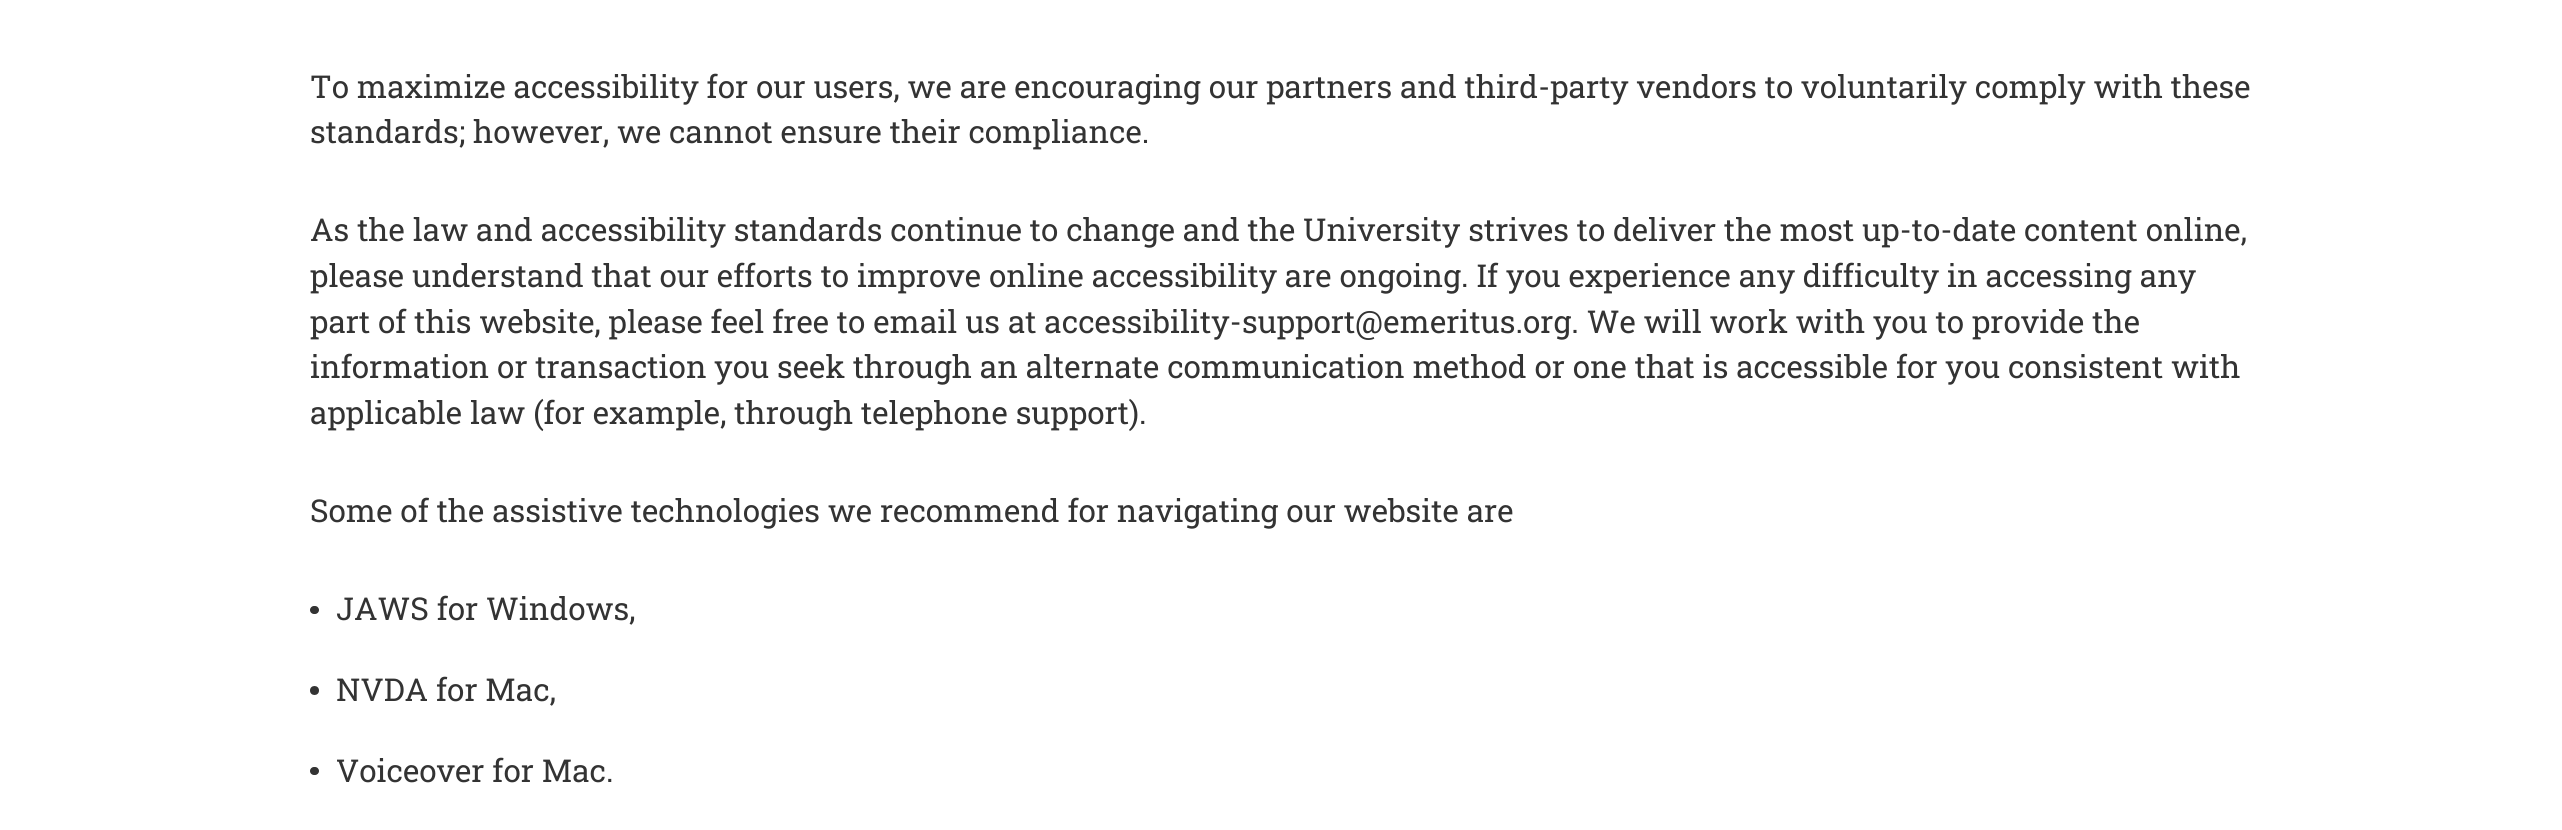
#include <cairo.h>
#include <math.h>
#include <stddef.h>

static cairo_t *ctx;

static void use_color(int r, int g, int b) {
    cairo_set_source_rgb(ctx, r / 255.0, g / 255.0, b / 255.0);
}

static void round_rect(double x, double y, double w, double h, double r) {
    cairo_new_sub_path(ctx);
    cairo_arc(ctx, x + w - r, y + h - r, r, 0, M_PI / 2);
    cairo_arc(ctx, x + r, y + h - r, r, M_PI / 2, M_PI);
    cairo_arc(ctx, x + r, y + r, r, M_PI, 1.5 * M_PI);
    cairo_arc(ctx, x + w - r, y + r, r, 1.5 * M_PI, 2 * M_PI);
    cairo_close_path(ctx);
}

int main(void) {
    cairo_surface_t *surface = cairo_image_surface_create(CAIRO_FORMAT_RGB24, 2562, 830);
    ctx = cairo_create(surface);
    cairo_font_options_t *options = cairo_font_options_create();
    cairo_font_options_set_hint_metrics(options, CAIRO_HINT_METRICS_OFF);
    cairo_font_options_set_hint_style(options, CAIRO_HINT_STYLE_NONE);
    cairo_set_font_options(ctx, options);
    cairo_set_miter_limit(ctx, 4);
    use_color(255, 255, 255);
    cairo_paint(ctx);
    cairo_select_font_face(ctx, "Roboto Slab", CAIRO_FONT_SLANT_NORMAL, CAIRO_FONT_WEIGHT_NORMAL);
    cairo_set_font_size(ctx, 31.5);
    use_color(51, 51, 51);
    cairo_move_to(ctx, 310, 98);
    cairo_show_text(ctx, "To maximize accessibility for our users, we are encouraging our partners and third-party vendors to voluntarily comply with these");
    cairo_move_to(ctx, 310, 143);
    cairo_show_text(ctx, "standards; however, we cannot ensure their compliance.");
    cairo_move_to(ctx, 310, 241);
    cairo_show_text(ctx, "As the law and accessibility standards continue to change and the University strives to deliver the most up-to-date content online,");
    cairo_move_to(ctx, 310, 287);
    cairo_show_text(ctx, "please understand that our efforts to improve online accessibility are ongoing. If you experience any difficulty in accessing any");
    cairo_move_to(ctx, 310, 333);
    cairo_show_text(ctx, "part of this website, please feel free to email us at accessibility-support@emeritus.org. We will work with you to provide the");
    cairo_move_to(ctx, 310, 378);
    cairo_show_text(ctx, "information or transaction you seek through an alternate communication method or one that is accessible for you consistent with");
    cairo_move_to(ctx, 310, 424);
    cairo_show_text(ctx, "applicable law (for example, through telephone support).");
    cairo_move_to(ctx, 310, 522);
    cairo_show_text(ctx, "Some of the assistive technologies we recommend for navigating our website are");
    round_rect(310, 606, 9, 8, 4);
    cairo_fill(ctx);
    cairo_move_to(ctx, 336, 620);
    cairo_show_text(ctx, "JAWS for Windows,");
    cairo_new_path(ctx);
    cairo_arc(ctx, 314.5, 690.5, 4.5, 0, 2 * M_PI);
    cairo_fill(ctx);
    cairo_move_to(ctx, 336, 701);
    cairo_show_text(ctx, "NVDA for Mac,");
    round_rect(310, 767, 9, 8, 4);
    cairo_fill(ctx);
    cairo_move_to(ctx, 336, 782);
    cairo_show_text(ctx, "Voiceover for Mac.");
    cairo_surface_write_to_png(surface, "result.png");
    cairo_font_options_destroy(options);
    cairo_destroy(ctx);
    cairo_surface_destroy(surface);
    return 0;
}
